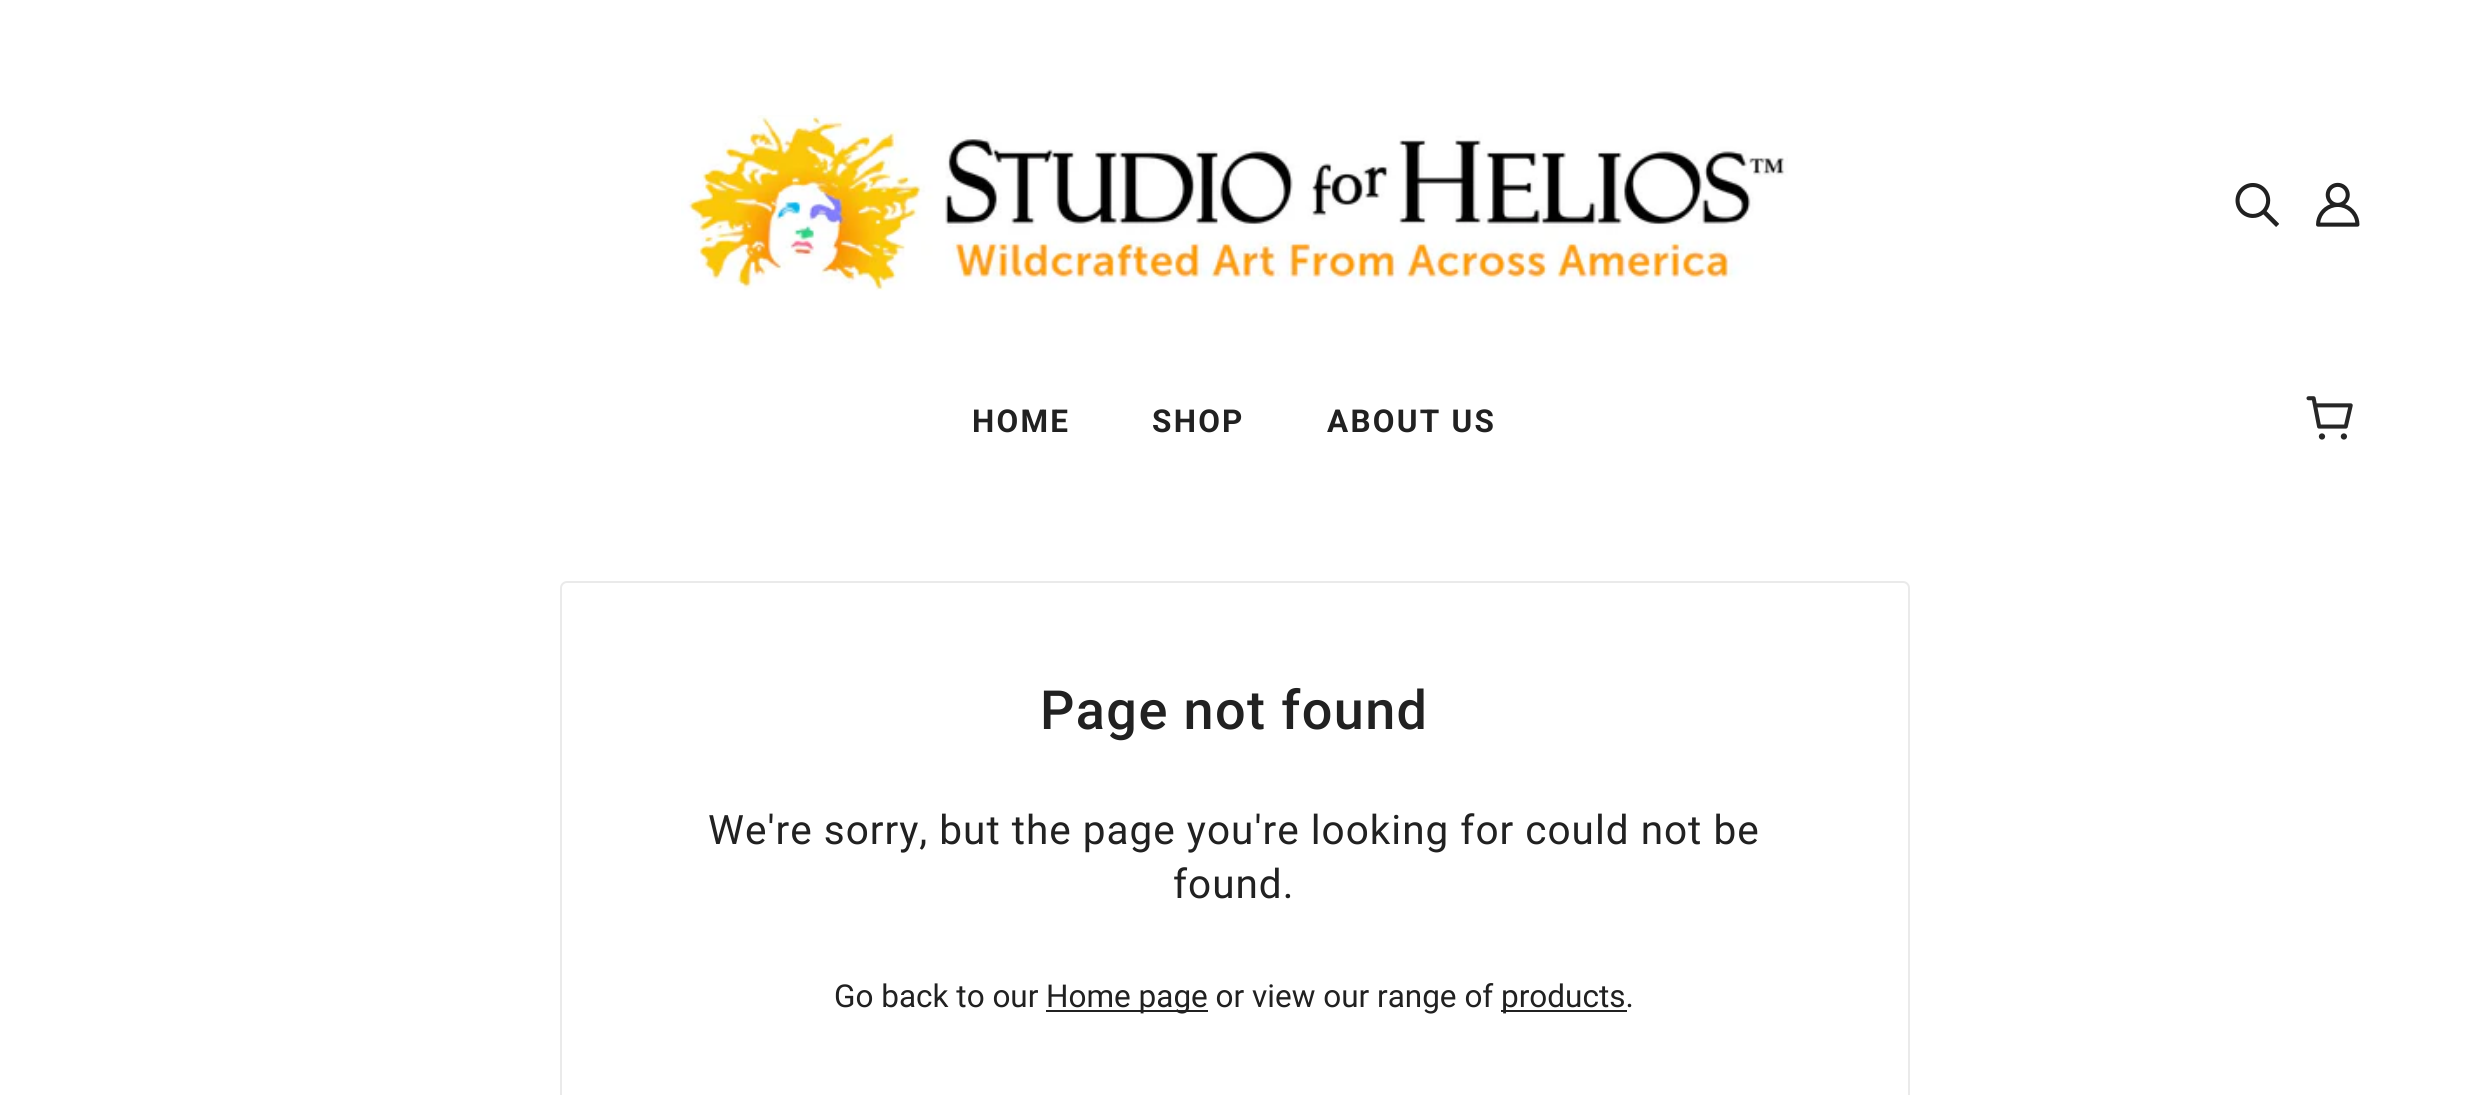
#include <cairo.h>
#include <math.h>
#include <stddef.h>

static cairo_t *ctx;

static void use_color(int r, int g, int b) {
    cairo_set_source_rgb(ctx, r / 255.0, g / 255.0, b / 255.0);
}

static void spaced_text(double x, double y, const char *s, double letter, double word) {
    cairo_move_to(ctx, x, y);
    while (*s) {
        char ch[5] = {0};
        int n = 0;
        do ch[n++] = *s++; while ((*s & 0xC0) == 0x80);
        cairo_show_text(ctx, ch);
        cairo_rel_move_to(ctx, letter + word * (*ch == ' '), 0);
    }
}

static void round_rect(double x, double y, double w, double h, double r) {
    cairo_new_sub_path(ctx);
    cairo_arc(ctx, x + w - r, y + h - r, r, 0, M_PI / 2);
    cairo_arc(ctx, x + r, y + h - r, r, M_PI / 2, M_PI);
    cairo_arc(ctx, x + r, y + r, r, M_PI, 1.5 * M_PI);
    cairo_arc(ctx, x + w - r, y + r, r, 1.5 * M_PI, 2 * M_PI);
    cairo_close_path(ctx);
}

static void picture(const char *path, double x, double y, double w, double h) {
    cairo_surface_t *image = cairo_image_surface_create_from_png(path);
    cairo_save(ctx);
    cairo_set_source_surface(ctx, image, x, y);
    cairo_rectangle(ctx, x, y, w, h);
    cairo_fill(ctx);
    cairo_restore(ctx);
    cairo_surface_destroy(image);
}

int main(void) {
    cairo_surface_t *surface = cairo_image_surface_create(CAIRO_FORMAT_RGB24, 2468, 1095);
    ctx = cairo_create(surface);
    cairo_font_options_t *options = cairo_font_options_create();
    cairo_font_options_set_hint_metrics(options, CAIRO_HINT_METRICS_OFF);
    cairo_font_options_set_hint_style(options, CAIRO_HINT_STYLE_NONE);
    cairo_set_font_options(ctx, options);
    cairo_set_miter_limit(ctx, 4);
    use_color(255, 255, 255);
    cairo_paint(ctx);
    picture("img1.png", 681, 115, 1107, 176);
    picture("img2.png", 2235, 183, 44, 44);
    picture("img3.png", 2316, 182, 44, 45);
    cairo_select_font_face(ctx, "Roboto", CAIRO_FONT_SLANT_NORMAL, CAIRO_FONT_WEIGHT_BOLD);
    cairo_set_font_size(ctx, 31.5);
    use_color(33, 33, 33);
    spaced_text(972, 432, "HOME", 2.25, 0);
    spaced_text(1152, 432, "SHOP", 2.25, 0);
    spaced_text(1327, 432, "ABOUT US", 2.25, 0);
    picture("img4.png", 2306, 396, 47, 44);
    round_rect(561, 582, 1348, 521, 6);
    use_color(234, 234, 234);
    cairo_stroke(ctx);
    cairo_select_font_face(ctx, "Roboto Medium", CAIRO_FONT_SLANT_NORMAL, CAIRO_FONT_WEIGHT_NORMAL);
    cairo_set_font_size(ctx, 54);
    use_color(33, 33, 33);
    spaced_text(1040, 729, "Page not found", 1.4, 0);
    cairo_select_font_face(ctx, "Roboto", CAIRO_FONT_SLANT_NORMAL, CAIRO_FONT_WEIGHT_NORMAL);
    cairo_set_font_size(ctx, 40.5);
    spaced_text(708, 844, "We're sorry, but the page you're looking for could not be", 1, 0);
    spaced_text(1173, 898, "found.", 1, 0);
    cairo_set_font_size(ctx, 31.5);
    cairo_move_to(ctx, 834, 1007);
    cairo_show_text(ctx, "Go back to our");
    cairo_rectangle(ctx, 1046, 1010, 162, 2);
    cairo_fill(ctx);
    cairo_move_to(ctx, 1046, 1007);
    cairo_show_text(ctx, "Home page or view our range of");
    cairo_rectangle(ctx, 1501, 1010, 126, 2);
    cairo_fill(ctx);
    cairo_move_to(ctx, 1501, 1007);
    cairo_show_text(ctx, "products.");
    cairo_surface_write_to_png(surface, "result.png");
    cairo_font_options_destroy(options);
    cairo_destroy(ctx);
    cairo_surface_destroy(surface);
    return 0;
}
